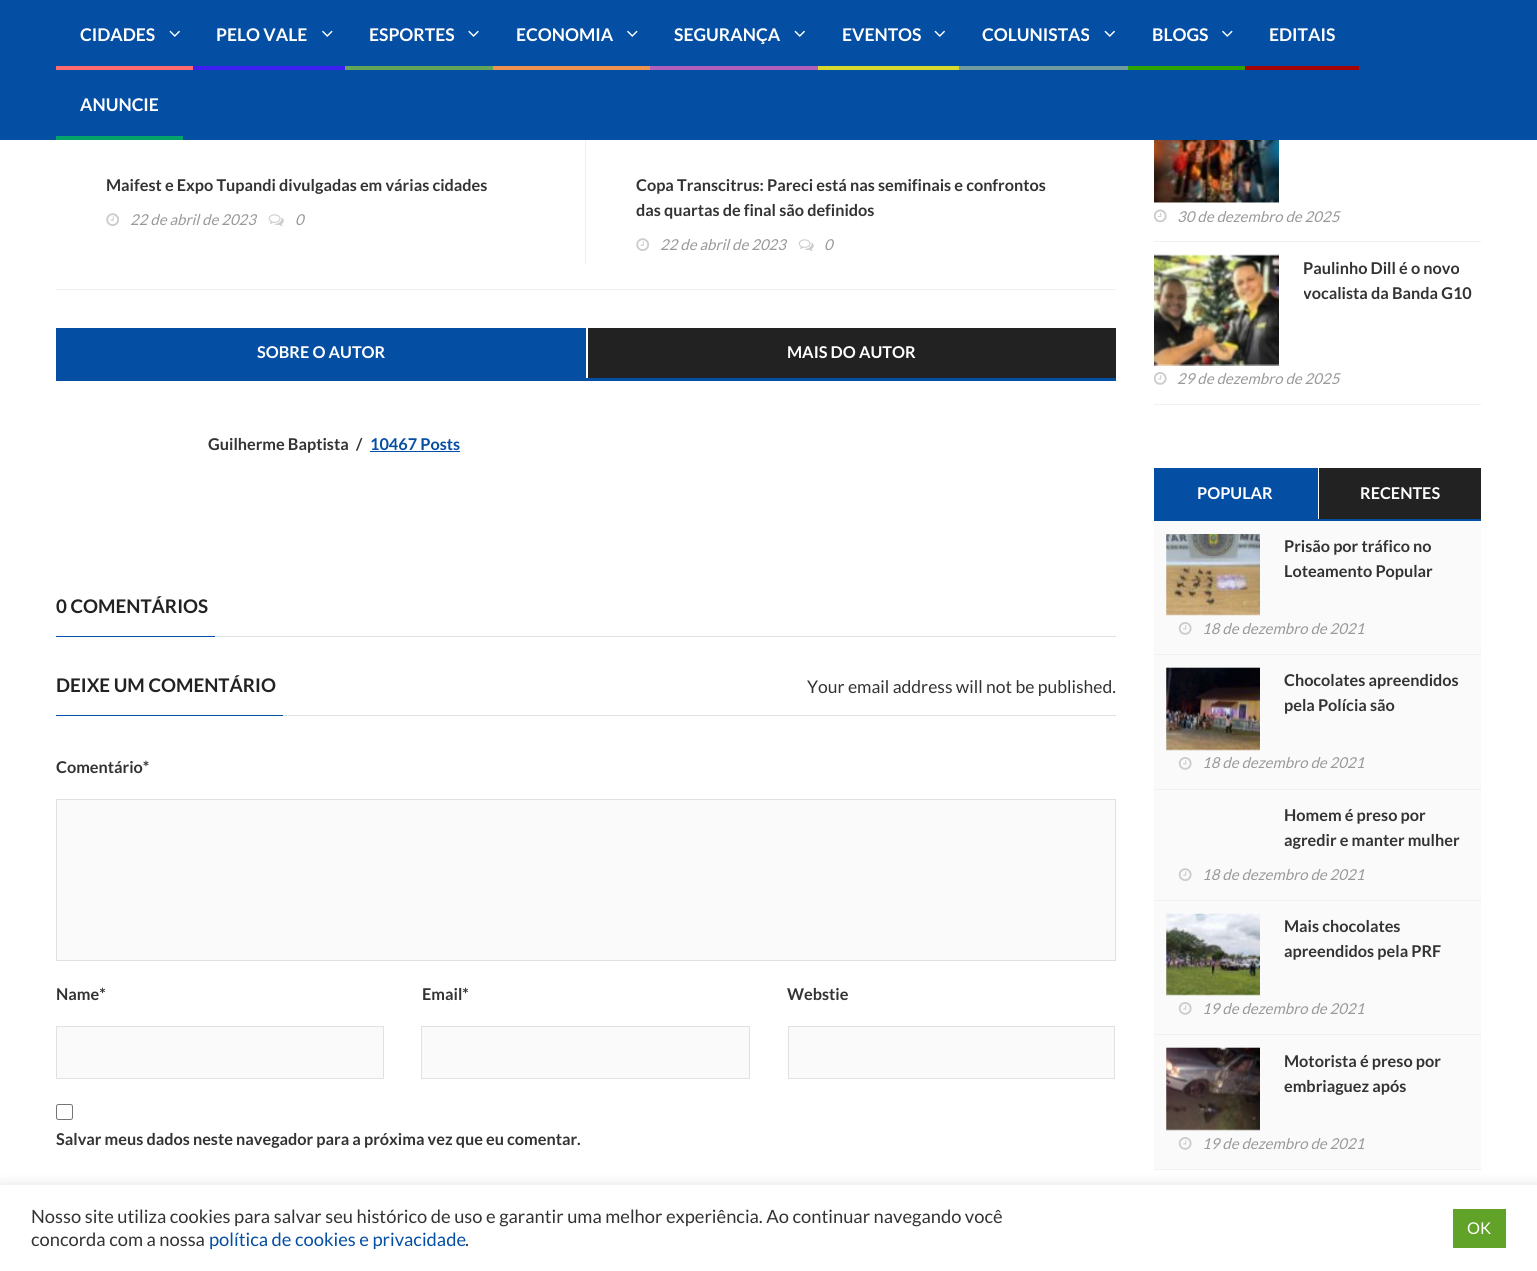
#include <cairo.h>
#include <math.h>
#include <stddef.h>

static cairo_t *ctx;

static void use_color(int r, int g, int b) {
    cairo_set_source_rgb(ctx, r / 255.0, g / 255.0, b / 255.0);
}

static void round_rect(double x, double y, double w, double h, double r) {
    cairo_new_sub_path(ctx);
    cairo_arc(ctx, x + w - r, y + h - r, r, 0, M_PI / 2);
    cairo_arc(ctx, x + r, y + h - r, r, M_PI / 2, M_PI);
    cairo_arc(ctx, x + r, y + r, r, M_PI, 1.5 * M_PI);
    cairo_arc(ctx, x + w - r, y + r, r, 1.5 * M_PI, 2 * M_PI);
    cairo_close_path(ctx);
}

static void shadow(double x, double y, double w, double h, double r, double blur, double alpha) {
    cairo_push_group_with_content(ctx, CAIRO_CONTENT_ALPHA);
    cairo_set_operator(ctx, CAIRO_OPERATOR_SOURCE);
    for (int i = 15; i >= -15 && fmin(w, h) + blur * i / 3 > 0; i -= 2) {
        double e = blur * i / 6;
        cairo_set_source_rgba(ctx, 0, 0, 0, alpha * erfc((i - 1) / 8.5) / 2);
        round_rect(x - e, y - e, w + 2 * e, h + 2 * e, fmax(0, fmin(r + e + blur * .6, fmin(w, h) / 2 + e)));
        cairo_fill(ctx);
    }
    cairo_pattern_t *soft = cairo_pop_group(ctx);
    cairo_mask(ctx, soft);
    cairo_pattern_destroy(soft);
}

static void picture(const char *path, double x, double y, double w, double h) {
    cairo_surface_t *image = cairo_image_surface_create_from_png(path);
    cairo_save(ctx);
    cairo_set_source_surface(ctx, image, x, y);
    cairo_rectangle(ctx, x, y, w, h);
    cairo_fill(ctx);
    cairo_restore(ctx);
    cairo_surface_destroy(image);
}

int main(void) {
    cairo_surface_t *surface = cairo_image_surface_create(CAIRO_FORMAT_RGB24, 1537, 1271);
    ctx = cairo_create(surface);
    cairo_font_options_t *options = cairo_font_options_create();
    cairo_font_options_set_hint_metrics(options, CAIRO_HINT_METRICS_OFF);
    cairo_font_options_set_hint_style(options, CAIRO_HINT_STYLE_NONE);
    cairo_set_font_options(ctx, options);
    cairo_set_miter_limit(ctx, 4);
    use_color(255, 255, 255);
    cairo_paint(ctx);
    use_color(4, 78, 163);
    cairo_rectangle(ctx, 0, 0, 1537, 140);
    cairo_fill(ctx);
    cairo_select_font_face(ctx, "Lato", CAIRO_FONT_SLANT_NORMAL, CAIRO_FONT_WEIGHT_BOLD);
    cairo_set_font_size(ctx, 17.5);
    use_color(255, 255, 255);
    cairo_move_to(ctx, 80, 41);
    cairo_show_text(ctx, "CIDADES");
    picture("img1.png", 169, 30, 11, 7);
    use_color(254, 108, 111);
    cairo_rectangle(ctx, 56, 66, 137, 4);
    cairo_fill(ctx);
    use_color(255, 255, 255);
    cairo_move_to(ctx, 216, 41);
    cairo_show_text(ctx, "PELO VALE");
    picture("img2.png", 322, 30, 11, 7);
    use_color(61, 31, 241);
    cairo_rectangle(ctx, 193, 66, 152, 4);
    cairo_fill(ctx);
    use_color(255, 255, 255);
    cairo_move_to(ctx, 369, 41);
    cairo_show_text(ctx, "ESPORTES");
    picture("img3.png", 468, 30, 11, 7);
    use_color(99, 166, 90);
    cairo_rectangle(ctx, 345, 66, 148, 4);
    cairo_fill(ctx);
    use_color(255, 255, 255);
    cairo_move_to(ctx, 516, 41);
    cairo_show_text(ctx, "ECONOMIA");
    picture("img2.png", 627, 30, 11, 7);
    use_color(239, 146, 77);
    cairo_rectangle(ctx, 493, 66, 157, 4);
    cairo_fill(ctx);
    use_color(255, 255, 255);
    cairo_move_to(ctx, 674, 41);
    cairo_show_text(ctx, "SEGURANÇA");
    picture("img1.png", 794, 30, 11, 7);
    use_color(177, 96, 187);
    cairo_rectangle(ctx, 650, 66, 168, 4);
    cairo_fill(ctx);
    use_color(255, 255, 255);
    cairo_move_to(ctx, 842, 41);
    cairo_show_text(ctx, "EVENTOS");
    picture("img1.png", 934, 30, 11, 7);
    use_color(215, 217, 44);
    cairo_rectangle(ctx, 818, 66, 141, 4);
    cairo_fill(ctx);
    use_color(255, 255, 255);
    cairo_move_to(ctx, 982, 41);
    cairo_show_text(ctx, "COLUNISTAS");
    picture("img1.png", 1104, 30, 11, 7);
    use_color(113, 155, 158);
    cairo_rectangle(ctx, 959, 66, 169, 4);
    cairo_fill(ctx);
    use_color(255, 255, 255);
    cairo_move_to(ctx, 1152, 41);
    cairo_show_text(ctx, "BLOGS");
    picture("img2.png", 1222, 30, 11, 7);
    use_color(45, 163, 4);
    cairo_rectangle(ctx, 1128, 66, 117, 4);
    cairo_fill(ctx);
    use_color(255, 255, 255);
    cairo_move_to(ctx, 1269, 41);
    cairo_show_text(ctx, "EDITAIS");
    use_color(163, 4, 4);
    cairo_rectangle(ctx, 1245, 66, 114, 4);
    cairo_fill(ctx);
    use_color(255, 255, 255);
    cairo_move_to(ctx, 80, 111);
    cairo_show_text(ctx, "ANUNCIE");
    use_color(4, 163, 105);
    cairo_rectangle(ctx, 56, 136, 127, 4);
    cairo_fill(ctx);
    use_color(240, 240, 240);
    cairo_rectangle(ctx, 56, 289, 1060, 1);
    cairo_fill(ctx);
    cairo_rectangle(ctx, 585, 140, 1, 124);
    cairo_fill(ctx);
    cairo_set_font_size(ctx, 16.25);
    use_color(51, 51, 51);
    cairo_move_to(ctx, 106, 191);
    cairo_show_text(ctx, "Maifest e Expo Tupandi divulgadas em várias cidades");
    picture("img4.png", 106, 213, 13, 13);
    cairo_select_font_face(ctx, "Lato", CAIRO_FONT_SLANT_ITALIC, CAIRO_FONT_WEIGHT_NORMAL);
    cairo_set_font_size(ctx, 15);
    use_color(153, 153, 153);
    cairo_move_to(ctx, 130, 225);
    cairo_show_text(ctx, "22 de abril de 2023");
    picture("img5.png", 268, 214, 16, 12);
    cairo_move_to(ctx, 295, 225);
    cairo_show_text(ctx, "0");
    cairo_select_font_face(ctx, "Lato", CAIRO_FONT_SLANT_NORMAL, CAIRO_FONT_WEIGHT_BOLD);
    cairo_set_font_size(ctx, 16.25);
    use_color(51, 51, 51);
    cairo_move_to(ctx, 636, 191);
    cairo_show_text(ctx, "Copa Transcitrus: Pareci está nas semifinais e confrontos");
    cairo_move_to(ctx, 636, 216);
    cairo_show_text(ctx, "das quartas de final são definidos");
    picture("img4.png", 636, 238, 13, 13);
    cairo_select_font_face(ctx, "Lato", CAIRO_FONT_SLANT_ITALIC, CAIRO_FONT_WEIGHT_NORMAL);
    cairo_set_font_size(ctx, 15);
    use_color(153, 153, 153);
    cairo_move_to(ctx, 660, 250);
    cairo_show_text(ctx, "22 de abril de 2023");
    picture("img5.png", 798, 239, 16, 12);
    cairo_move_to(ctx, 824, 250);
    cairo_show_text(ctx, "0");
    use_color(4, 78, 163);
    cairo_rectangle(ctx, 56, 378, 1060, 3);
    cairo_fill(ctx);
    cairo_rectangle(ctx, 56, 328, 530, 50);
    cairo_fill(ctx);
    cairo_select_font_face(ctx, "Lato", CAIRO_FONT_SLANT_NORMAL, CAIRO_FONT_WEIGHT_BOLD);
    cairo_set_font_size(ctx, 16.25);
    use_color(255, 255, 255);
    cairo_move_to(ctx, 257, 358);
    cairo_show_text(ctx, "SOBRE O AUTOR");
    use_color(34, 34, 34);
    cairo_rectangle(ctx, 588, 328, 528, 50);
    cairo_fill(ctx);
    use_color(255, 255, 255);
    cairo_move_to(ctx, 787, 358);
    cairo_show_text(ctx, "MAIS DO AUTOR");
    use_color(51, 51, 51);
    cairo_move_to(ctx, 208, 450);
    cairo_show_text(ctx, "Guilherme Baptista");
    cairo_move_to(ctx, 356, 450);
    cairo_show_text(ctx, "/");
    use_color(4, 78, 163);
    cairo_move_to(ctx, 370, 450);
    cairo_show_text(ctx, "10467 Posts");
    cairo_rectangle(ctx, 370, 451, 90, 1);
    cairo_fill(ctx);
    use_color(225, 225, 225);
    cairo_rectangle(ctx, 215, 636, 901, 1);
    cairo_fill(ctx);
    use_color(4, 78, 163);
    cairo_rectangle(ctx, 56, 636, 159, 1);
    cairo_fill(ctx);
    cairo_set_font_size(ctx, 18.75);
    use_color(34, 34, 34);
    cairo_move_to(ctx, 56, 613);
    cairo_show_text(ctx, "0 COMENTÁRIOS");
    use_color(225, 225, 225);
    cairo_rectangle(ctx, 283, 715, 833, 1);
    cairo_fill(ctx);
    use_color(4, 78, 163);
    cairo_rectangle(ctx, 56, 715, 227, 1);
    cairo_fill(ctx);
    use_color(34, 34, 34);
    cairo_move_to(ctx, 56, 692);
    cairo_show_text(ctx, "DEIXE UM COMENTÁRIO");
    cairo_select_font_face(ctx, "Lato", CAIRO_FONT_SLANT_NORMAL, CAIRO_FONT_WEIGHT_NORMAL);
    cairo_set_font_size(ctx, 17.5);
    use_color(51, 51, 51);
    cairo_move_to(ctx, 807, 693);
    cairo_show_text(ctx, "Your email address will not be published.");
    cairo_select_font_face(ctx, "Lato", CAIRO_FONT_SLANT_NORMAL, CAIRO_FONT_WEIGHT_BOLD);
    cairo_set_font_size(ctx, 16.25);
    cairo_move_to(ctx, 56, 773);
    cairo_show_text(ctx, "Comentário*");
    use_color(250, 250, 250);
    cairo_rectangle(ctx, 56.5, 799.5, 1059, 161);
    cairo_fill_preserve(ctx);
    use_color(225, 225, 225);
    cairo_set_line_width(ctx, 1);
    cairo_stroke(ctx);
    use_color(51, 51, 51);
    cairo_move_to(ctx, 56, 1000);
    cairo_show_text(ctx, "Name*");
    use_color(250, 250, 250);
    cairo_rectangle(ctx, 56.5, 1026.5, 327, 52);
    cairo_fill_preserve(ctx);
    use_color(225, 225, 225);
    cairo_stroke(ctx);
    use_color(51, 51, 51);
    cairo_move_to(ctx, 422, 1000);
    cairo_show_text(ctx, "Email*");
    use_color(250, 250, 250);
    cairo_rectangle(ctx, 421.5, 1026.5, 328, 52);
    cairo_fill_preserve(ctx);
    use_color(225, 225, 225);
    cairo_stroke(ctx);
    use_color(51, 51, 51);
    cairo_move_to(ctx, 787, 1000);
    cairo_show_text(ctx, "Webstie");
    use_color(250, 250, 250);
    cairo_rectangle(ctx, 788.5, 1026.5, 326, 52);
    cairo_fill_preserve(ctx);
    use_color(225, 225, 225);
    cairo_stroke(ctx);
    round_rect(56.5, 1104.5, 16, 15, 2);
    use_color(118, 118, 118);
    cairo_stroke(ctx);
    use_color(51, 51, 51);
    cairo_move_to(ctx, 56, 1145);
    cairo_show_text(ctx, "Salvar meus dados neste navegador para a próxima vez que eu comentar.");
    use_color(240, 240, 240);
    cairo_rectangle(ctx, 1154, 241, 327, 1);
    cairo_fill(ctx);
    picture("img6.png", 1154, 140, 125, 63);
    picture("img7.png", 1154, 209, 13, 14);
    cairo_select_font_face(ctx, "Lato", CAIRO_FONT_SLANT_ITALIC, CAIRO_FONT_WEIGHT_NORMAL);
    cairo_set_font_size(ctx, 15);
    use_color(153, 153, 153);
    cairo_move_to(ctx, 1177, 222);
    cairo_show_text(ctx, "30 de dezembro de 2025");
    use_color(240, 240, 240);
    cairo_rectangle(ctx, 1154, 404, 327, 1);
    cairo_fill(ctx);
    picture("img8.png", 1154, 254, 125, 112);
    cairo_select_font_face(ctx, "Lato", CAIRO_FONT_SLANT_NORMAL, CAIRO_FONT_WEIGHT_BOLD);
    cairo_set_font_size(ctx, 16.25);
    use_color(51, 51, 51);
    cairo_move_to(ctx, 1303, 274);
    cairo_show_text(ctx, "Paulinho Dill é o novo");
    cairo_save(ctx);
    cairo_rectangle(ctx, 1304, 255, 177, 50);
    cairo_clip(ctx);
    cairo_move_to(ctx, 1303, 299);
    cairo_show_text(ctx, "vocalista da Banda G10");
    cairo_restore(ctx);
    picture("img9.png", 1154, 372, 13, 13);
    cairo_select_font_face(ctx, "Lato", CAIRO_FONT_SLANT_ITALIC, CAIRO_FONT_WEIGHT_NORMAL);
    cairo_set_font_size(ctx, 15);
    use_color(153, 153, 153);
    cairo_move_to(ctx, 1177, 384);
    cairo_show_text(ctx, "29 de dezembro de 2025");
    use_color(4, 78, 163);
    cairo_rectangle(ctx, 1154, 519, 327, 2);
    cairo_fill(ctx);
    cairo_rectangle(ctx, 1154, 468, 164, 51);
    cairo_fill(ctx);
    cairo_select_font_face(ctx, "Lato", CAIRO_FONT_SLANT_NORMAL, CAIRO_FONT_WEIGHT_BOLD);
    cairo_set_font_size(ctx, 16.25);
    use_color(255, 255, 255);
    cairo_move_to(ctx, 1197, 499);
    cairo_show_text(ctx, "POPULAR");
    use_color(34, 34, 34);
    cairo_rectangle(ctx, 1319, 468, 162, 51);
    cairo_fill(ctx);
    use_color(255, 255, 255);
    cairo_move_to(ctx, 1360, 499);
    cairo_show_text(ctx, "RECENTES");
    use_color(250, 250, 250);
    cairo_rectangle(ctx, 1154, 521, 327, 648);
    cairo_fill(ctx);
    use_color(240, 240, 240);
    cairo_rectangle(ctx, 1154, 654, 327, 1);
    cairo_fill(ctx);
    picture("img10.png", 1166, 534, 94, 82);
    use_color(51, 51, 51);
    cairo_move_to(ctx, 1284, 552);
    cairo_show_text(ctx, "Prisão por tráfico no");
    cairo_move_to(ctx, 1284, 577);
    cairo_show_text(ctx, "Loteamento Popular");
    picture("img11.png", 1178, 622, 14, 13);
    cairo_select_font_face(ctx, "Lato", CAIRO_FONT_SLANT_ITALIC, CAIRO_FONT_WEIGHT_NORMAL);
    cairo_set_font_size(ctx, 15);
    use_color(153, 153, 153);
    cairo_move_to(ctx, 1202, 634);
    cairo_show_text(ctx, "18 de dezembro de 2021");
    use_color(240, 240, 240);
    cairo_rectangle(ctx, 1154, 789, 327, 1);
    cairo_fill(ctx);
    picture("img12.png", 1166, 667, 94, 84);
    cairo_select_font_face(ctx, "Lato", CAIRO_FONT_SLANT_NORMAL, CAIRO_FONT_WEIGHT_BOLD);
    cairo_set_font_size(ctx, 16.25);
    use_color(51, 51, 51);
    cairo_move_to(ctx, 1284, 686);
    cairo_show_text(ctx, "Chocolates apreendidos");
    cairo_move_to(ctx, 1284, 711);
    cairo_show_text(ctx, "pela Polícia são");
    picture("img11.png", 1178, 757, 14, 13);
    cairo_select_font_face(ctx, "Lato", CAIRO_FONT_SLANT_ITALIC, CAIRO_FONT_WEIGHT_NORMAL);
    cairo_set_font_size(ctx, 15);
    use_color(153, 153, 153);
    cairo_move_to(ctx, 1202, 768);
    cairo_show_text(ctx, "18 de dezembro de 2021");
    use_color(240, 240, 240);
    cairo_rectangle(ctx, 1154, 900, 327, 1);
    cairo_fill(ctx);
    cairo_select_font_face(ctx, "Lato", CAIRO_FONT_SLANT_NORMAL, CAIRO_FONT_WEIGHT_BOLD);
    cairo_set_font_size(ctx, 16.25);
    use_color(51, 51, 51);
    cairo_move_to(ctx, 1284, 821);
    cairo_show_text(ctx, "Homem é preso por");
    cairo_move_to(ctx, 1284, 846);
    cairo_show_text(ctx, "agredir e manter mulher");
    picture("img13.png", 1178, 868, 14, 13);
    cairo_select_font_face(ctx, "Lato", CAIRO_FONT_SLANT_ITALIC, CAIRO_FONT_WEIGHT_NORMAL);
    cairo_set_font_size(ctx, 15);
    use_color(153, 153, 153);
    cairo_move_to(ctx, 1202, 880);
    cairo_show_text(ctx, "18 de dezembro de 2021");
    use_color(240, 240, 240);
    cairo_rectangle(ctx, 1154, 1034, 327, 1);
    cairo_fill(ctx);
    picture("img14.png", 1166, 913, 94, 83);
    cairo_select_font_face(ctx, "Lato", CAIRO_FONT_SLANT_NORMAL, CAIRO_FONT_WEIGHT_BOLD);
    cairo_set_font_size(ctx, 16.25);
    use_color(51, 51, 51);
    cairo_move_to(ctx, 1284, 932);
    cairo_show_text(ctx, "Mais chocolates");
    cairo_move_to(ctx, 1284, 957);
    cairo_show_text(ctx, "apreendidos pela PRF");
    picture("img11.png", 1178, 1002, 14, 13);
    cairo_select_font_face(ctx, "Lato", CAIRO_FONT_SLANT_ITALIC, CAIRO_FONT_WEIGHT_NORMAL);
    cairo_set_font_size(ctx, 15);
    use_color(153, 153, 153);
    cairo_move_to(ctx, 1202, 1014);
    cairo_show_text(ctx, "19 de dezembro de 2021");
    use_color(240, 240, 240);
    cairo_rectangle(ctx, 1154, 1169, 327, 1);
    cairo_fill(ctx);
    picture("img15.png", 1166, 1047, 94, 84);
    cairo_select_font_face(ctx, "Lato", CAIRO_FONT_SLANT_NORMAL, CAIRO_FONT_WEIGHT_BOLD);
    cairo_set_font_size(ctx, 16.25);
    use_color(51, 51, 51);
    cairo_move_to(ctx, 1284, 1067);
    cairo_show_text(ctx, "Motorista é preso por");
    cairo_move_to(ctx, 1284, 1092);
    cairo_show_text(ctx, "embriaguez após");
    picture("img11.png", 1178, 1137, 14, 13);
    cairo_select_font_face(ctx, "Lato", CAIRO_FONT_SLANT_ITALIC, CAIRO_FONT_WEIGHT_NORMAL);
    cairo_set_font_size(ctx, 15);
    use_color(153, 153, 153);
    cairo_move_to(ctx, 1202, 1149);
    cairo_show_text(ctx, "19 de dezembro de 2021");
    use_color(172, 171, 171);
    shadow(0, 1184, 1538, 86, 0, 6, 0.3);
    use_color(255, 255, 255);
    cairo_rectangle(ctx, 0, 1185, 1537, 86);
    cairo_fill(ctx);
    cairo_select_font_face(ctx, "Lato", CAIRO_FONT_SLANT_NORMAL, CAIRO_FONT_WEIGHT_NORMAL);
    cairo_set_font_size(ctx, 18.33);
    use_color(51, 51, 51);
    cairo_move_to(ctx, 31, 1223);
    cairo_show_text(ctx, "Nosso site utiliza cookies para salvar seu histórico de uso e garantir uma melhor experiência. Ao continuar navegando você");
    cairo_move_to(ctx, 31, 1246);
    cairo_show_text(ctx, "concorda com a nossa");
    use_color(4, 78, 163);
    cairo_move_to(ctx, 209, 1246);
    cairo_show_text(ctx, "política de cookies e privacidade");
    use_color(51, 51, 51);
    cairo_move_to(ctx, 465, 1246);
    cairo_show_text(ctx, ".");
    use_color(97, 162, 41);
    cairo_rectangle(ctx, 1453, 1209, 53, 39);
    cairo_fill(ctx);
    cairo_set_font_size(ctx, 16.25);
    use_color(255, 255, 255);
    cairo_move_to(ctx, 1467, 1234);
    cairo_show_text(ctx, "OK");
    cairo_surface_write_to_png(surface, "result.png");
    cairo_font_options_destroy(options);
    cairo_destroy(ctx);
    cairo_surface_destroy(surface);
    return 0;
}
